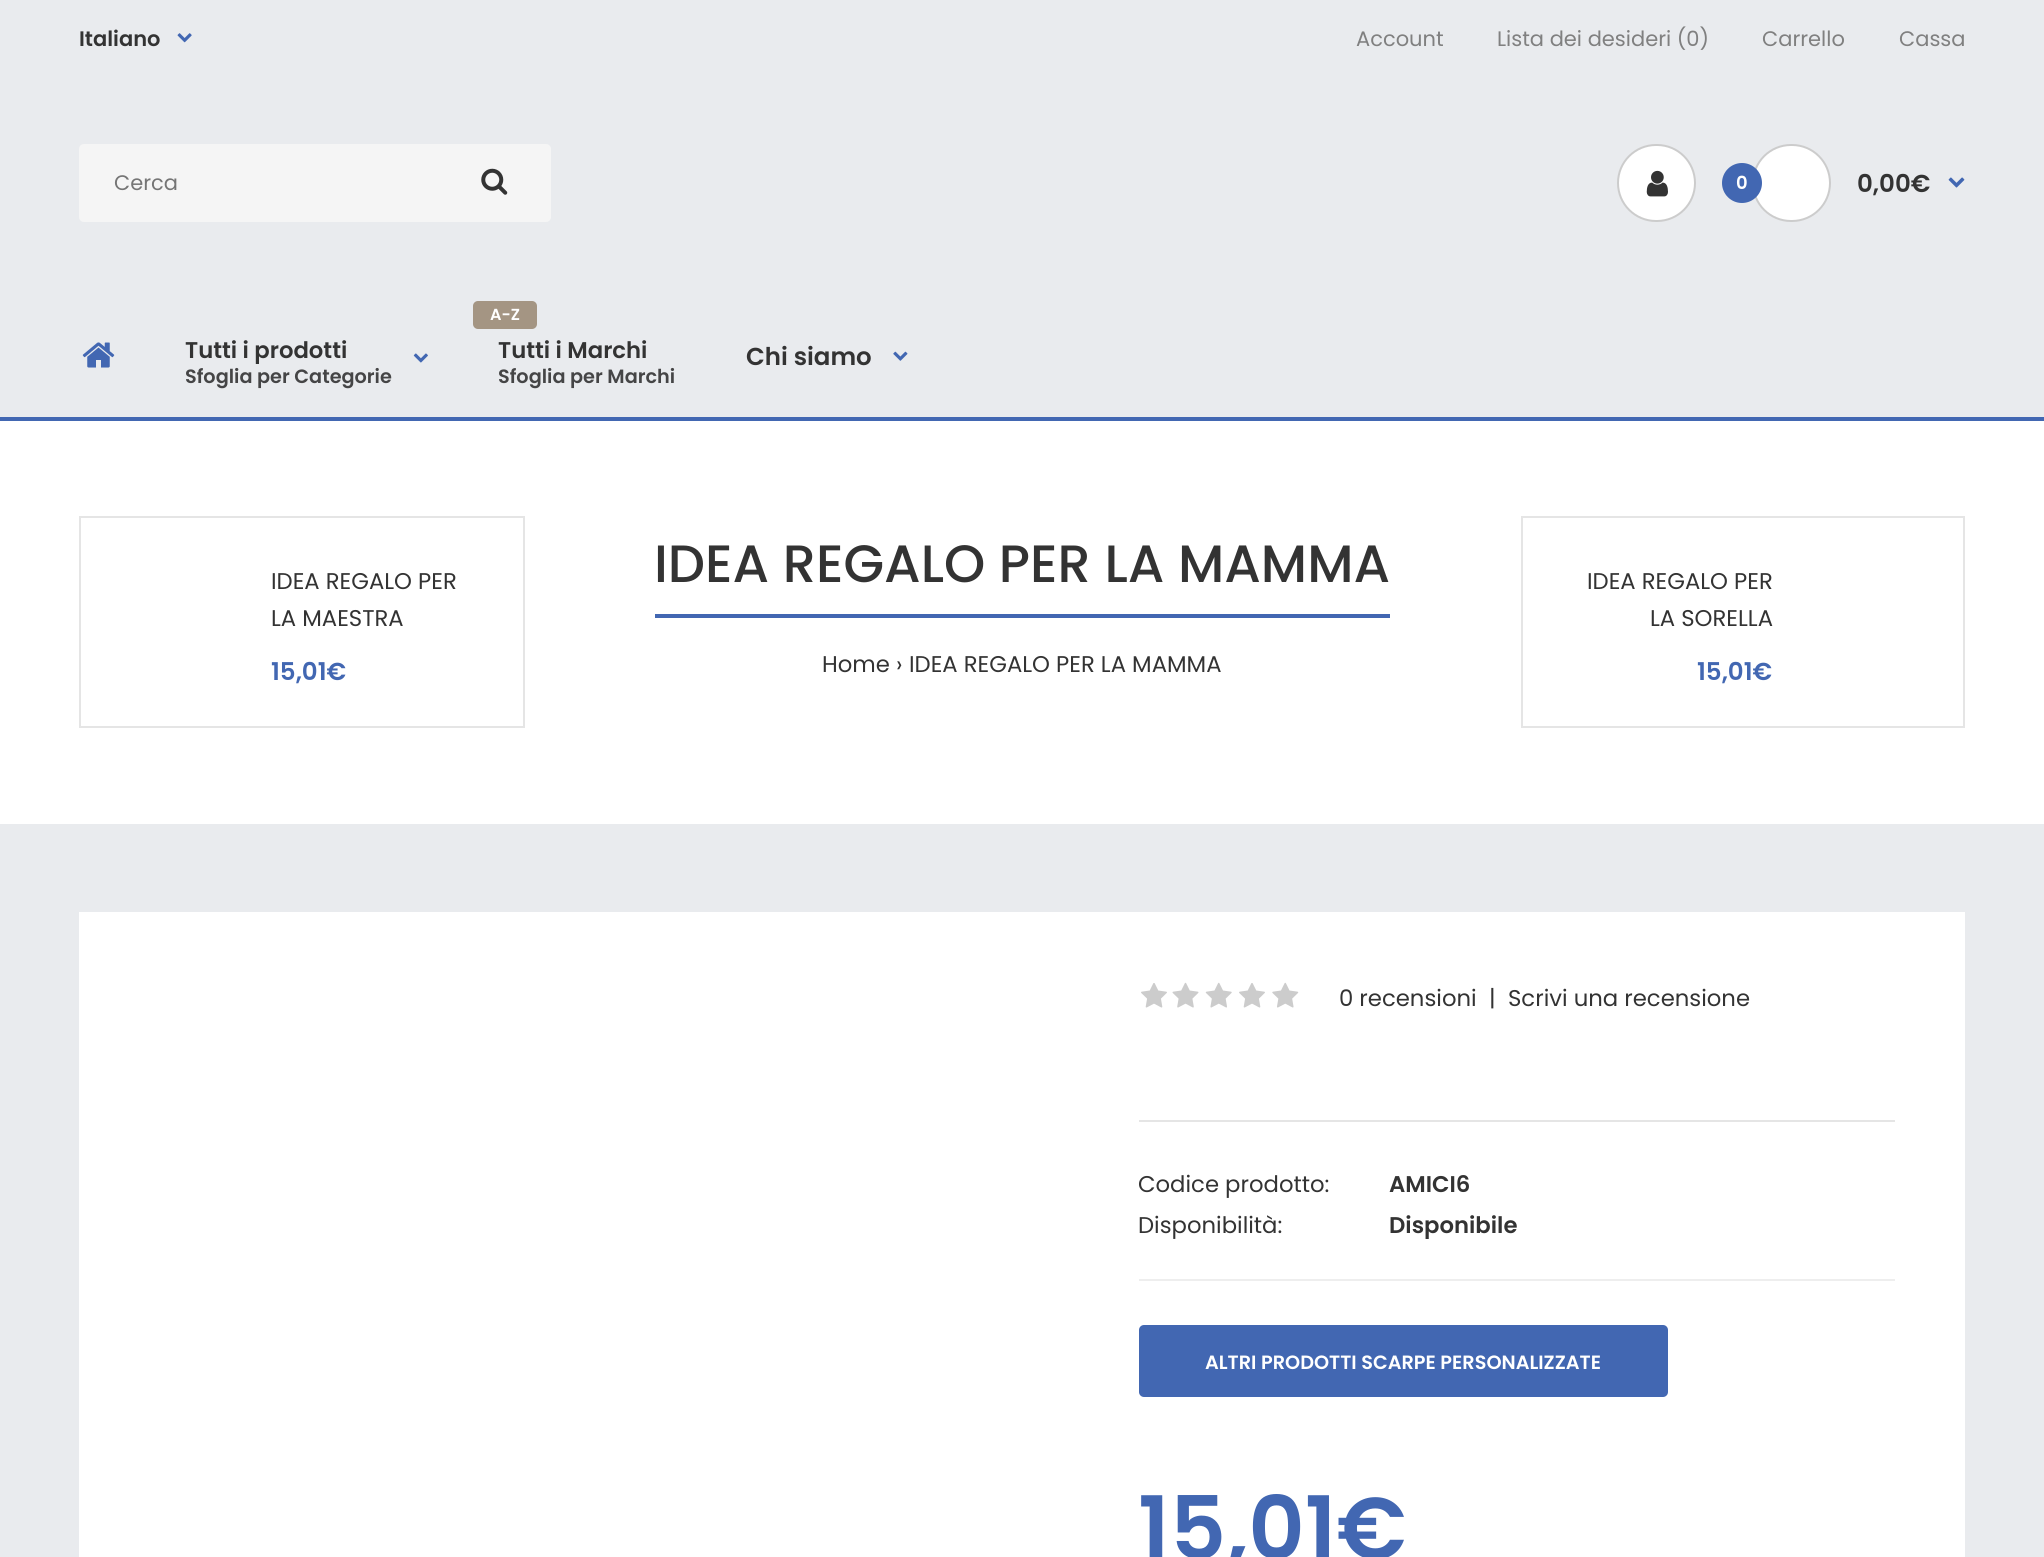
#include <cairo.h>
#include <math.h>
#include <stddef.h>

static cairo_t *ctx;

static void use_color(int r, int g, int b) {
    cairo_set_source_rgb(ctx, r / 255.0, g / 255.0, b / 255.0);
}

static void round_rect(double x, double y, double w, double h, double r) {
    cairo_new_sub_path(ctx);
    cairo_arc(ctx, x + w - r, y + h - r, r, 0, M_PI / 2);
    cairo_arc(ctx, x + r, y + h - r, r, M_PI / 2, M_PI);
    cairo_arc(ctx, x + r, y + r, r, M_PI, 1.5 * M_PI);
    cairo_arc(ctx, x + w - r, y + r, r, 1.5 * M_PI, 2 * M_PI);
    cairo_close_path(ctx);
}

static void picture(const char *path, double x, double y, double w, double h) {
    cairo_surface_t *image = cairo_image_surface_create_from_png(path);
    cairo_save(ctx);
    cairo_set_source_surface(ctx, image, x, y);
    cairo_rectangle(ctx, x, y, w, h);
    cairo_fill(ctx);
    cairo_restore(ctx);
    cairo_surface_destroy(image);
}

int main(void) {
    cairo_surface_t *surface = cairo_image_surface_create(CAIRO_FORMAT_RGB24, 2044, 1557);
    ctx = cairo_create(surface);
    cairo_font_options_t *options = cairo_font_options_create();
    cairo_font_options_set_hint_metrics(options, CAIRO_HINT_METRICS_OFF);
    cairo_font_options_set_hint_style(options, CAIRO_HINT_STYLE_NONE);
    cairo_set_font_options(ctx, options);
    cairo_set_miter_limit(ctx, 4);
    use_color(233, 235, 238);
    cairo_paint(ctx);
    cairo_select_font_face(ctx, "Poppins SemiBold", CAIRO_FONT_SLANT_NORMAL, CAIRO_FONT_WEIGHT_NORMAL);
    cairo_set_font_size(ctx, 21);
    use_color(51, 51, 51);
    cairo_move_to(ctx, 79, 46);
    cairo_show_text(ctx, "Italiano");
    picture("img1.png", 177, 33, 15, 10);
    cairo_select_font_face(ctx, "Poppins", CAIRO_FONT_SLANT_NORMAL, CAIRO_FONT_WEIGHT_NORMAL);
    use_color(128, 128, 128);
    cairo_move_to(ctx, 1356, 46);
    cairo_show_text(ctx, "Account");
    cairo_move_to(ctx, 1497, 46);
    cairo_show_text(ctx, "Lista dei desideri (0)");
    cairo_move_to(ctx, 1762, 46);
    cairo_show_text(ctx, "Carrello");
    cairo_move_to(ctx, 1899, 46);
    cairo_show_text(ctx, "Cassa");
    use_color(245, 245, 245);
    round_rect(79, 144, 472, 78, 5);
    cairo_fill(ctx);
    use_color(117, 117, 117);
    cairo_move_to(ctx, 114, 190);
    cairo_show_text(ctx, "Cerca");
    picture("img2.png", 481, 168, 27, 27);
    use_color(255, 255, 255);
    round_rect(1618, 145, 77, 76, 38);
    cairo_fill_preserve(ctx);
    use_color(204, 204, 204);
    cairo_stroke(ctx);
    picture("img3.png", 1646, 170, 22, 27);
    use_color(255, 255, 255);
    round_rect(1753, 145, 77, 76, 38);
    cairo_fill_preserve(ctx);
    use_color(204, 204, 204);
    cairo_stroke(ctx);
    use_color(66, 103, 178);
    cairo_arc(ctx, 1742, 183, 20, 0, 2 * M_PI);
    cairo_fill(ctx);
    cairo_select_font_face(ctx, "Poppins SemiBold", CAIRO_FONT_SLANT_NORMAL, CAIRO_FONT_WEIGHT_NORMAL);
    cairo_set_font_size(ctx, 18);
    use_color(255, 255, 255);
    cairo_move_to(ctx, 1736, 189);
    cairo_show_text(ctx, "0");
    cairo_set_font_size(ctx, 24.5);
    use_color(51, 51, 51);
    cairo_move_to(ctx, 1857, 192);
    cairo_show_text(ctx, "0,00€");
    picture("img4.png", 1948, 177, 17, 11);
    use_color(66, 103, 178);
    cairo_rectangle(ctx, 0, 417, 2044, 4);
    cairo_fill(ctx);
    picture("img5.png", 82, 342, 33, 26);
    cairo_set_font_size(ctx, 22.75);
    use_color(51, 51, 51);
    cairo_move_to(ctx, 185, 358);
    cairo_show_text(ctx, "Tutti i prodotti");
    cairo_set_font_size(ctx, 19.25);
    use_color(69, 69, 70);
    cairo_move_to(ctx, 185, 383);
    cairo_show_text(ctx, "Sfoglia per Categorie");
    picture("img6.png", 413, 353, 15, 10);
    use_color(164, 149, 131);
    round_rect(473, 301, 64, 28, 5);
    cairo_fill(ctx);
    cairo_set_font_size(ctx, 16);
    use_color(255, 255, 255);
    cairo_move_to(ctx, 490, 320);
    cairo_show_text(ctx, "A-Z");
    cairo_set_font_size(ctx, 22.75);
    use_color(51, 51, 51);
    cairo_move_to(ctx, 498, 358);
    cairo_show_text(ctx, "Tutti i Marchi");
    cairo_set_font_size(ctx, 19.25);
    use_color(69, 69, 70);
    cairo_move_to(ctx, 498, 383);
    cairo_show_text(ctx, "Sfoglia per Marchi");
    cairo_set_font_size(ctx, 24.5);
    use_color(51, 51, 51);
    cairo_move_to(ctx, 746, 365);
    cairo_show_text(ctx, "Chi siamo");
    picture("img7.png", 893, 351, 15, 10);
    use_color(255, 255, 255);
    cairo_rectangle(ctx, 0, 421, 2044, 403);
    cairo_fill(ctx);
    cairo_rectangle(ctx, 80, 517, 444, 210);
    use_color(229, 229, 229);
    cairo_stroke(ctx);
    cairo_select_font_face(ctx, "Poppins", CAIRO_FONT_SLANT_NORMAL, CAIRO_FONT_WEIGHT_NORMAL);
    cairo_set_font_size(ctx, 22.75);
    use_color(51, 51, 51);
    cairo_move_to(ctx, 271, 589);
    cairo_show_text(ctx, "IDEA REGALO PER");
    cairo_move_to(ctx, 271, 626);
    cairo_show_text(ctx, "LA MAESTRA");
    cairo_select_font_face(ctx, "Poppins SemiBold", CAIRO_FONT_SLANT_NORMAL, CAIRO_FONT_WEIGHT_NORMAL);
    cairo_set_font_size(ctx, 24.5);
    use_color(66, 103, 178);
    cairo_move_to(ctx, 271, 680);
    cairo_show_text(ctx, "15,01€");
    cairo_rectangle(ctx, 655, 614, 735, 4);
    cairo_fill(ctx);
    cairo_select_font_face(ctx, "Poppins Medium", CAIRO_FONT_SLANT_NORMAL, CAIRO_FONT_WEIGHT_NORMAL);
    cairo_set_font_size(ctx, 52.5);
    use_color(51, 51, 51);
    cairo_move_to(ctx, 654, 582);
    cairo_show_text(ctx, "IDEA REGALO PER LA MAMMA");
    cairo_select_font_face(ctx, "Poppins", CAIRO_FONT_SLANT_NORMAL, CAIRO_FONT_WEIGHT_NORMAL);
    cairo_set_font_size(ctx, 22.75);
    cairo_move_to(ctx, 822, 672);
    cairo_show_text(ctx, "Home ›");
    cairo_move_to(ctx, 909, 672);
    cairo_show_text(ctx, "IDEA REGALO PER LA MAMMA");
    cairo_rectangle(ctx, 1522, 517, 442, 210);
    use_color(229, 229, 229);
    cairo_stroke(ctx);
    use_color(51, 51, 51);
    cairo_move_to(ctx, 1587, 589);
    cairo_show_text(ctx, "IDEA REGALO PER");
    cairo_move_to(ctx, 1650, 626);
    cairo_show_text(ctx, "LA SORELLA");
    cairo_select_font_face(ctx, "Poppins SemiBold", CAIRO_FONT_SLANT_NORMAL, CAIRO_FONT_WEIGHT_NORMAL);
    cairo_set_font_size(ctx, 24.5);
    use_color(66, 103, 178);
    cairo_move_to(ctx, 1697, 680);
    cairo_show_text(ctx, "15,01€");
    use_color(255, 255, 255);
    cairo_rectangle(ctx, 79, 912, 1886, 645);
    cairo_fill(ctx);
    use_color(229, 229, 229);
    cairo_rectangle(ctx, 1139, 1120, 756, 2);
    cairo_fill(ctx);
    picture("img8.png", 1141, 983, 26, 25);
    picture("img9.png", 1172, 982, 27, 26);
    picture("img10.png", 1205, 982, 27, 26);
    picture("img8.png", 1239, 983, 26, 25);
    picture("img11.png", 1272, 982, 27, 26);
    cairo_select_font_face(ctx, "Poppins", CAIRO_FONT_SLANT_NORMAL, CAIRO_FONT_WEIGHT_NORMAL);
    cairo_set_font_size(ctx, 22.75);
    use_color(51, 51, 51);
    cairo_move_to(ctx, 1339, 1006);
    cairo_show_text(ctx, "0 recensioni");
    cairo_move_to(ctx, 1489, 1006);
    cairo_show_text(ctx, "|");
    cairo_move_to(ctx, 1508, 1006);
    cairo_show_text(ctx, "Scrivi una recensione");
    cairo_move_to(ctx, 1138, 1192);
    cairo_show_text(ctx, "Codice prodotto:");
    cairo_select_font_face(ctx, "Poppins SemiBold", CAIRO_FONT_SLANT_NORMAL, CAIRO_FONT_WEIGHT_NORMAL);
    cairo_move_to(ctx, 1389, 1192);
    cairo_show_text(ctx, "AMICI6");
    cairo_select_font_face(ctx, "Poppins", CAIRO_FONT_SLANT_NORMAL, CAIRO_FONT_WEIGHT_NORMAL);
    cairo_move_to(ctx, 1138, 1233);
    cairo_show_text(ctx, "Disponibilità:");
    cairo_select_font_face(ctx, "Poppins SemiBold", CAIRO_FONT_SLANT_NORMAL, CAIRO_FONT_WEIGHT_NORMAL);
    cairo_move_to(ctx, 1389, 1233);
    cairo_show_text(ctx, "Disponibile");
    use_color(238, 238, 238);
    cairo_rectangle(ctx, 1139, 1279, 756, 2);
    cairo_fill(ctx);
    use_color(66, 103, 178);
    round_rect(1139, 1325, 529, 72, 5);
    cairo_fill(ctx);
    cairo_set_font_size(ctx, 19.25);
    use_color(255, 255, 255);
    cairo_move_to(ctx, 1205, 1369);
    cairo_show_text(ctx, "ALTRI PRODOTTI SCARPE PERSONALIZZATE");
    cairo_set_font_size(ctx, 87.5);
    use_color(66, 103, 178);
    cairo_move_to(ctx, 1138, 1559);
    cairo_show_text(ctx, "15,01€");
    cairo_surface_write_to_png(surface, "result.png");
    cairo_font_options_destroy(options);
    cairo_destroy(ctx);
    cairo_surface_destroy(surface);
    return 0;
}
